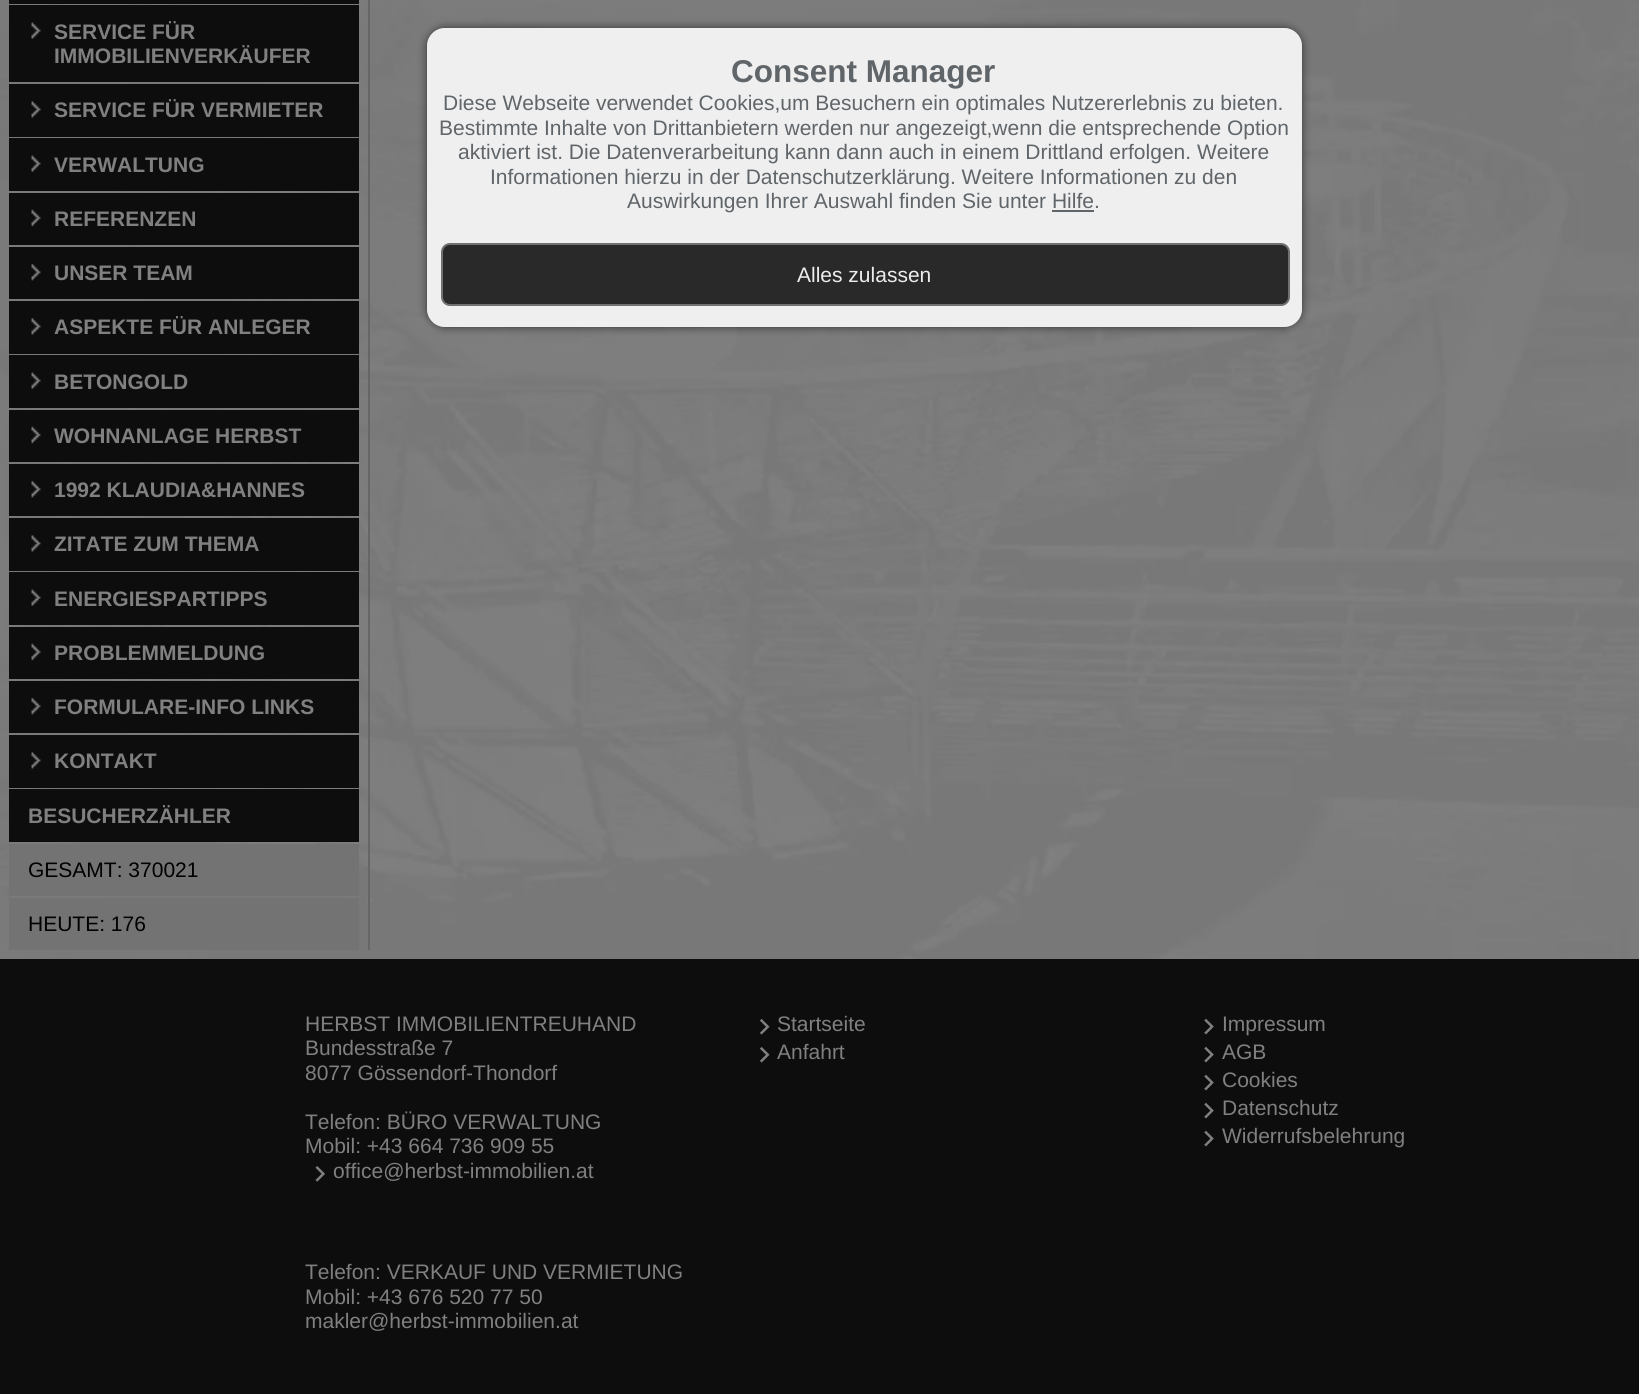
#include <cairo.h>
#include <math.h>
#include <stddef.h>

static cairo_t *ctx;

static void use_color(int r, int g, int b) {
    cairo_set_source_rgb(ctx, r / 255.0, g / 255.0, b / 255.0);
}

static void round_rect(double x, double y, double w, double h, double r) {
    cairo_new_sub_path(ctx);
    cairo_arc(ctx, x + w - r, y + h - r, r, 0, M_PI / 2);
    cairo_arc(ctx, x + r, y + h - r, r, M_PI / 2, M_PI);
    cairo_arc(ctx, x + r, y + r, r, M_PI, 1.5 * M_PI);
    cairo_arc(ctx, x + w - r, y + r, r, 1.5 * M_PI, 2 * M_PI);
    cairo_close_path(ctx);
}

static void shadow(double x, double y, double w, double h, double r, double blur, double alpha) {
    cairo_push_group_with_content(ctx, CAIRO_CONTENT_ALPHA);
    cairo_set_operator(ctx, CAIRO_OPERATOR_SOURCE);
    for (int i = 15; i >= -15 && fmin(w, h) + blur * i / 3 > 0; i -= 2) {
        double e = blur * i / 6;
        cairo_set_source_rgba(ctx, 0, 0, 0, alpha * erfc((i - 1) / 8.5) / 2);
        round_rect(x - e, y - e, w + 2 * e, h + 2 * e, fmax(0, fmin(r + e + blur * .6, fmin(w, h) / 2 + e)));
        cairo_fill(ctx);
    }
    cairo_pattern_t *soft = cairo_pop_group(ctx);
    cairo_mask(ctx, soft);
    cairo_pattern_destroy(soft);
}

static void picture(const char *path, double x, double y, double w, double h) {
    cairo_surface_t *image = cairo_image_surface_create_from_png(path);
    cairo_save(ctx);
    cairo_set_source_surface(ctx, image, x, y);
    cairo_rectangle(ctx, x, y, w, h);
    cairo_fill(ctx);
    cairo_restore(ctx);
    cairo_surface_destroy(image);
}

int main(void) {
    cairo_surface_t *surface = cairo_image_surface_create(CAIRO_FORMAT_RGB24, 1639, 1394);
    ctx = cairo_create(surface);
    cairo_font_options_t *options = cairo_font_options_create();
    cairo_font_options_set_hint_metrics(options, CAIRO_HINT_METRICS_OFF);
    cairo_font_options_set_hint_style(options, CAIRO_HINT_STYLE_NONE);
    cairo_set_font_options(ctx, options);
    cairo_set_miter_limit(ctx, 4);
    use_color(255, 255, 255);
    cairo_paint(ctx);
    picture("img1.png", 0, 0, 1639, 959);
    use_color(102, 102, 102);
    cairo_rectangle(ctx, 368, 0, 2, 950);
    cairo_fill(ctx);
    use_color(13, 13, 13);
    cairo_rectangle(ctx, 9, 0, 350, 4);
    cairo_fill(ctx);
    cairo_rectangle(ctx, 9, 5, 350, 77);
    cairo_fill(ctx);
    picture("img2.png", 31, 22, 10, 17);
    cairo_select_font_face(ctx, "Liberation Sans", CAIRO_FONT_SLANT_NORMAL, CAIRO_FONT_WEIGHT_BOLD);
    cairo_set_font_size(ctx, 21);
    use_color(128, 128, 128);
    cairo_move_to(ctx, 54, 39);
    cairo_show_text(ctx, "SERVICE FÜR");
    cairo_move_to(ctx, 54, 63);
    cairo_show_text(ctx, "IMMOBILIENVERKÄUFER");
    use_color(13, 13, 13);
    cairo_rectangle(ctx, 9, 84, 350, 53);
    cairo_fill(ctx);
    picture("img3.png", 31, 101, 10, 17);
    use_color(128, 128, 128);
    cairo_move_to(ctx, 54, 117);
    cairo_show_text(ctx, "SERVICE FÜR VERMIETER");
    use_color(13, 13, 13);
    cairo_rectangle(ctx, 9, 138, 350, 53);
    cairo_fill(ctx);
    picture("img2.png", 31, 155, 10, 17);
    use_color(128, 128, 128);
    cairo_move_to(ctx, 54, 172);
    cairo_show_text(ctx, "VERWALTUNG");
    use_color(13, 13, 13);
    cairo_rectangle(ctx, 9, 193, 350, 52);
    cairo_fill(ctx);
    picture("img4.png", 31, 209, 10, 18);
    use_color(128, 128, 128);
    cairo_move_to(ctx, 54, 226);
    cairo_show_text(ctx, "REFERENZEN");
    use_color(13, 13, 13);
    cairo_rectangle(ctx, 9, 247, 350, 52);
    cairo_fill(ctx);
    picture("img5.png", 31, 263, 10, 18);
    use_color(128, 128, 128);
    cairo_move_to(ctx, 54, 280);
    cairo_show_text(ctx, "UNSER TEAM");
    use_color(13, 13, 13);
    cairo_rectangle(ctx, 9, 301, 350, 53);
    cairo_fill(ctx);
    picture("img3.png", 31, 318, 10, 17);
    use_color(128, 128, 128);
    cairo_move_to(ctx, 54, 334);
    cairo_show_text(ctx, "ASPEKTE FÜR ANLEGER");
    use_color(13, 13, 13);
    cairo_rectangle(ctx, 9, 355, 350, 53);
    cairo_fill(ctx);
    picture("img2.png", 31, 372, 10, 17);
    use_color(128, 128, 128);
    cairo_move_to(ctx, 54, 389);
    cairo_show_text(ctx, "BETONGOLD");
    use_color(13, 13, 13);
    cairo_rectangle(ctx, 9, 410, 350, 52);
    cairo_fill(ctx);
    picture("img4.png", 31, 426, 10, 18);
    use_color(128, 128, 128);
    cairo_move_to(ctx, 54, 443);
    cairo_show_text(ctx, "WOHNANLAGE HERBST");
    use_color(13, 13, 13);
    cairo_rectangle(ctx, 9, 464, 350, 52);
    cairo_fill(ctx);
    picture("img5.png", 31, 480, 10, 18);
    use_color(128, 128, 128);
    cairo_move_to(ctx, 54, 497);
    cairo_show_text(ctx, "1992 KLAUDIA&HANNES");
    use_color(13, 13, 13);
    cairo_rectangle(ctx, 9, 518, 350, 53);
    cairo_fill(ctx);
    picture("img3.png", 31, 535, 10, 17);
    use_color(128, 128, 128);
    cairo_move_to(ctx, 54, 551);
    cairo_show_text(ctx, "ZITATE ZUM THEMA");
    use_color(13, 13, 13);
    cairo_rectangle(ctx, 9, 572, 350, 53);
    cairo_fill(ctx);
    picture("img2.png", 31, 589, 10, 17);
    use_color(128, 128, 128);
    cairo_move_to(ctx, 54, 606);
    cairo_show_text(ctx, "ENERGIESPARTIPPS");
    use_color(13, 13, 13);
    cairo_rectangle(ctx, 9, 627, 350, 52);
    cairo_fill(ctx);
    picture("img4.png", 31, 643, 10, 18);
    use_color(128, 128, 128);
    cairo_move_to(ctx, 54, 660);
    cairo_show_text(ctx, "PROBLEMMELDUNG");
    use_color(13, 13, 13);
    cairo_rectangle(ctx, 9, 681, 350, 52);
    cairo_fill(ctx);
    picture("img5.png", 31, 697, 10, 18);
    use_color(128, 128, 128);
    cairo_move_to(ctx, 54, 714);
    cairo_show_text(ctx, "FORMULARE-INFO LINKS");
    use_color(13, 13, 13);
    cairo_rectangle(ctx, 9, 735, 350, 53);
    cairo_fill(ctx);
    picture("img3.png", 31, 752, 10, 17);
    use_color(128, 128, 128);
    cairo_move_to(ctx, 54, 768);
    cairo_show_text(ctx, "KONTAKT");
    use_color(13, 13, 13);
    cairo_rectangle(ctx, 9, 789, 350, 53);
    cairo_fill(ctx);
    use_color(128, 128, 128);
    cairo_move_to(ctx, 28, 823);
    cairo_show_text(ctx, "BESUCHERZÄHLER");
    use_color(115, 115, 115);
    cairo_rectangle(ctx, 9, 844, 350, 52);
    cairo_fill(ctx);
    cairo_select_font_face(ctx, "Liberation Sans", CAIRO_FONT_SLANT_NORMAL, CAIRO_FONT_WEIGHT_NORMAL);
    use_color(0, 0, 0);
    cairo_move_to(ctx, 28, 877);
    cairo_show_text(ctx, "GESAMT: 370021");
    use_color(115, 115, 115);
    cairo_rectangle(ctx, 9, 898, 350, 52);
    cairo_fill(ctx);
    use_color(0, 0, 0);
    cairo_move_to(ctx, 28, 931);
    cairo_show_text(ctx, "HEUTE: 176");
    use_color(13, 13, 13);
    cairo_rectangle(ctx, 0, 959, 1639, 435);
    cairo_fill(ctx);
    use_color(128, 128, 128);
    cairo_move_to(ctx, 305, 1031);
    cairo_show_text(ctx, "HERBST IMMOBILIENTREUHAND");
    cairo_move_to(ctx, 305, 1055);
    cairo_show_text(ctx, "Bundesstraße 7");
    cairo_move_to(ctx, 305, 1080);
    cairo_show_text(ctx, "8077 Gössendorf-Thondorf");
    cairo_move_to(ctx, 305, 1129);
    cairo_show_text(ctx, "Telefon: BÜRO VERWALTUNG");
    cairo_move_to(ctx, 305, 1153);
    cairo_show_text(ctx, "Mobil: +43 664 736 909 55");
    picture("img6.png", 315, 1166, 10, 16);
    cairo_move_to(ctx, 333, 1178);
    cairo_show_text(ctx, "office@herbst-immobilien.at");
    picture("img7.png", 760, 1019, 10, 16);
    cairo_move_to(ctx, 777, 1031);
    cairo_show_text(ctx, "Startseite");
    picture("img7.png", 760, 1047, 10, 16);
    cairo_move_to(ctx, 777, 1059);
    cairo_show_text(ctx, "Anfahrt");
    picture("img8.png", 1204, 1018, 10, 17);
    cairo_move_to(ctx, 1222, 1031);
    cairo_show_text(ctx, "Impressum");
    picture("img8.png", 1204, 1046, 10, 17);
    cairo_move_to(ctx, 1222, 1059);
    cairo_show_text(ctx, "AGB");
    picture("img8.png", 1204, 1074, 10, 17);
    cairo_move_to(ctx, 1222, 1087);
    cairo_show_text(ctx, "Cookies");
    picture("img8.png", 1204, 1102, 10, 17);
    cairo_move_to(ctx, 1222, 1115);
    cairo_show_text(ctx, "Datenschutz");
    picture("img8.png", 1204, 1130, 10, 17);
    cairo_move_to(ctx, 1222, 1143);
    cairo_show_text(ctx, "Widerrufsbelehrung");
    cairo_move_to(ctx, 305, 1279);
    cairo_show_text(ctx, "Telefon: VERKAUF UND VERMIETUNG");
    cairo_move_to(ctx, 305, 1304);
    cairo_show_text(ctx, "Mobil: +43 676 520 77 50");
    cairo_move_to(ctx, 305, 1328);
    cairo_show_text(ctx, "makler@herbst-immobilien.at");
    cairo_save(ctx);
    cairo_set_fill_rule(ctx, CAIRO_FILL_RULE_EVEN_ODD);
    cairo_new_path(ctx);
    cairo_move_to(ctx, 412, 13);
    cairo_line_to(ctx, 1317, 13);
    cairo_line_to(ctx, 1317, 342);
    cairo_line_to(ctx, 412, 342);
    cairo_close_path(ctx);
    cairo_move_to(ctx, 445, 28);
    cairo_line_to(ctx, 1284, 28);
    cairo_curve_to(ctx, 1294, 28, 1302, 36, 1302, 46);
    cairo_line_to(ctx, 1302, 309);
    cairo_curve_to(ctx, 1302, 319, 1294, 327, 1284, 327);
    cairo_line_to(ctx, 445, 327);
    cairo_curve_to(ctx, 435, 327, 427, 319, 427, 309);
    cairo_line_to(ctx, 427, 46);
    cairo_curve_to(ctx, 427, 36, 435, 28, 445, 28);
    cairo_close_path(ctx);
    cairo_clip(ctx);
    use_color(0, 0, 0);
    shadow(427, 28, 875, 299, 18, 4.5, 0.6);
    cairo_restore(ctx);
    cairo_set_source_rgba(ctx, 0.988, 0.988, 0.988, 0.9);
    round_rect(427, 28, 875, 299, 18);
    cairo_fill(ctx);
    cairo_select_font_face(ctx, "Liberation Sans", CAIRO_FONT_SLANT_NORMAL, CAIRO_FONT_WEIGHT_BOLD);
    cairo_set_font_size(ctx, 31.5);
    use_color(96, 101, 105);
    cairo_move_to(ctx, 731, 82);
    cairo_show_text(ctx, "Consent Manager");
    cairo_select_font_face(ctx, "Liberation Sans", CAIRO_FONT_SLANT_NORMAL, CAIRO_FONT_WEIGHT_NORMAL);
    cairo_set_font_size(ctx, 21);
    cairo_move_to(ctx, 443, 110);
    cairo_show_text(ctx, "Diese Webseite verwendet Cookies,um Besuchern ein optimales Nutzererlebnis zu bieten.");
    cairo_move_to(ctx, 439, 135);
    cairo_show_text(ctx, "Bestimmte Inhalte von Drittanbietern werden nur angezeigt,wenn die entsprechende Option");
    cairo_move_to(ctx, 458, 159);
    cairo_show_text(ctx, "aktiviert ist. Die Datenverarbeitung kann dann auch in einem Drittland erfolgen. Weitere");
    cairo_move_to(ctx, 490, 184);
    cairo_show_text(ctx, "Informationen hierzu in der Datenschutzerklärung. Weitere Informationen zu den");
    cairo_move_to(ctx, 627, 208);
    cairo_show_text(ctx, "Auswirkungen Ihrer Auswahl finden Sie unter Hilfe.");
    cairo_rectangle(ctx, 1052, 210, 42, 2);
    cairo_fill(ctx);
    use_color(41, 41, 41);
    round_rect(442, 244, 847, 61, 8);
    cairo_fill_preserve(ctx);
    use_color(112, 112, 112);
    cairo_stroke(ctx);
    use_color(237, 237, 237);
    cairo_move_to(ctx, 797, 282);
    cairo_show_text(ctx, "Alles zulassen");
    cairo_surface_write_to_png(surface, "result.png");
    cairo_font_options_destroy(options);
    cairo_destroy(ctx);
    cairo_surface_destroy(surface);
    return 0;
}
